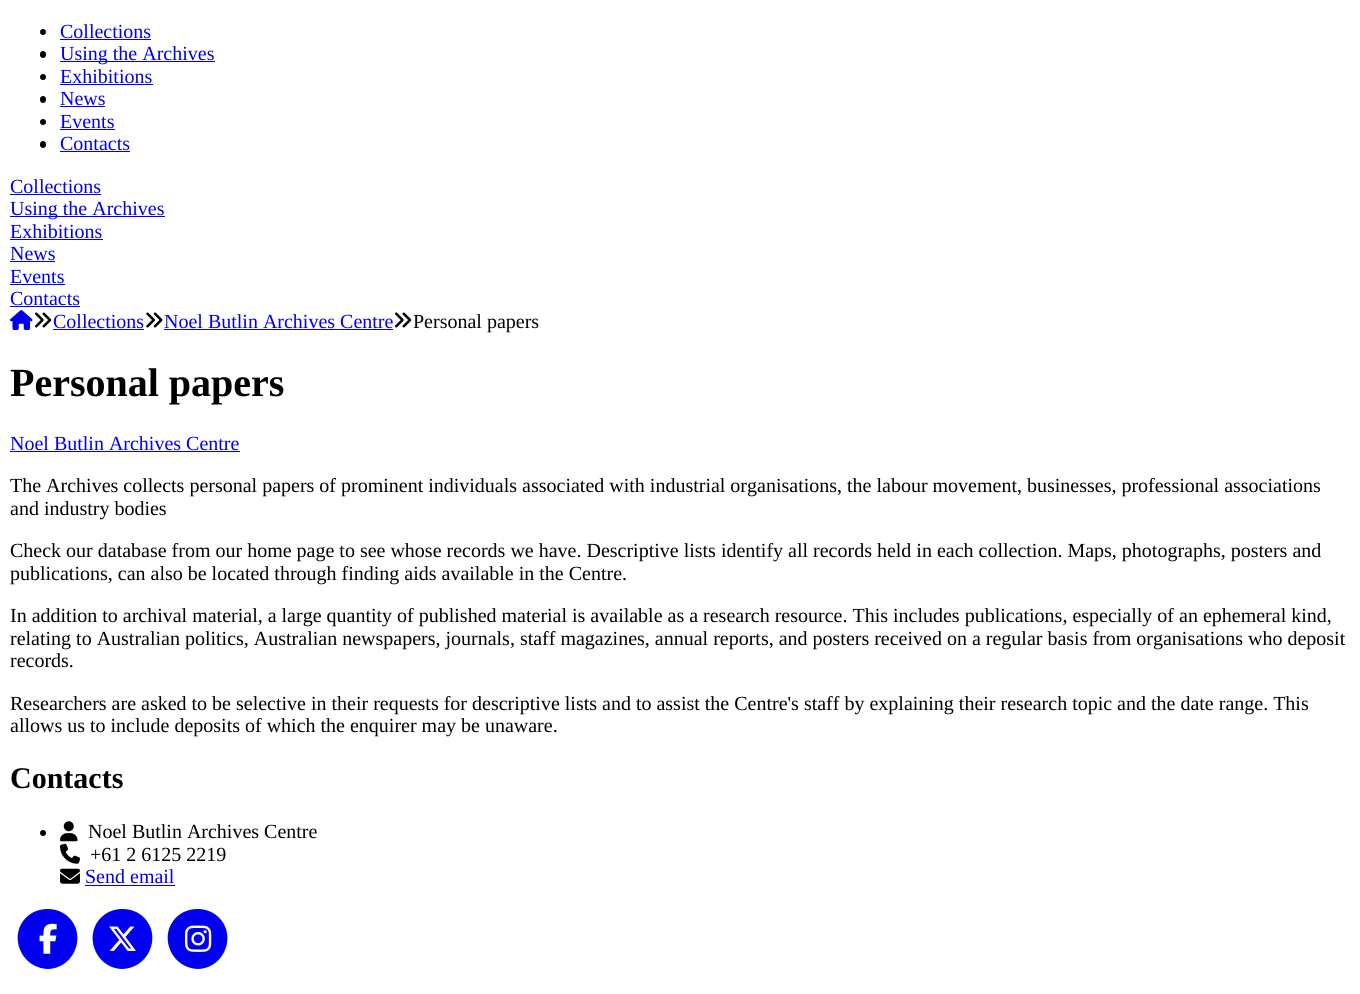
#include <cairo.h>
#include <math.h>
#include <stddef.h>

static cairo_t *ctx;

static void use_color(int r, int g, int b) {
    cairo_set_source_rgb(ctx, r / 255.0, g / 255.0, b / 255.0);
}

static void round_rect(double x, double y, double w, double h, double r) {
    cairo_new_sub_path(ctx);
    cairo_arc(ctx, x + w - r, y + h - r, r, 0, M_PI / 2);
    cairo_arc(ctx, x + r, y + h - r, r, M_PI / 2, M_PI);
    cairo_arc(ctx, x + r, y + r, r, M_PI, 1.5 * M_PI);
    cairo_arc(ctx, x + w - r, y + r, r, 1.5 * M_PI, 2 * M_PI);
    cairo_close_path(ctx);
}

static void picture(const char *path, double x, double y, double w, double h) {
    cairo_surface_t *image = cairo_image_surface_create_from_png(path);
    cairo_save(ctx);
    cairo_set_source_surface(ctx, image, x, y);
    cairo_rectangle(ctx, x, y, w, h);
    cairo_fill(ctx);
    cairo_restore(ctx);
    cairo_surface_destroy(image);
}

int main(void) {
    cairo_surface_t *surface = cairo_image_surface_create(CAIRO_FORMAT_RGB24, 1360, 994);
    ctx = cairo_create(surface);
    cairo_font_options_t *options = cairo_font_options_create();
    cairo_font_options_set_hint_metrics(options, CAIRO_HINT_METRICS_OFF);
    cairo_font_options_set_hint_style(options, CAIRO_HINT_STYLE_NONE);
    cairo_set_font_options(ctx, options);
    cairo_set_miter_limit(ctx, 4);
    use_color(255, 255, 255);
    cairo_paint(ctx);
    use_color(0, 0, 0);
    cairo_arc(ctx, 43, 32, 3, 0, 2 * M_PI);
    cairo_fill(ctx);
    cairo_select_font_face(ctx, "Liberation Serif", CAIRO_FONT_SLANT_NORMAL, CAIRO_FONT_WEIGHT_NORMAL);
    cairo_set_font_size(ctx, 20);
    use_color(0, 0, 238);
    cairo_move_to(ctx, 60, 38);
    cairo_show_text(ctx, "Collections");
    cairo_rectangle(ctx, 60, 39, 91, 1);
    cairo_fill(ctx);
    use_color(0, 0, 0);
    round_rect(40, 51, 6, 7, 3);
    cairo_fill(ctx);
    use_color(0, 0, 238);
    cairo_rectangle(ctx, 60, 61, 155, 1);
    cairo_fill(ctx);
    cairo_move_to(ctx, 60, 60);
    cairo_show_text(ctx, "Using the Archives");
    use_color(0, 0, 0);
    cairo_new_path(ctx);
    cairo_arc(ctx, 43, 77, 3, 0, 2 * M_PI);
    cairo_fill(ctx);
    use_color(0, 0, 238);
    cairo_move_to(ctx, 60, 83);
    cairo_show_text(ctx, "Exhibitions");
    cairo_rectangle(ctx, 60, 84, 93, 1);
    cairo_fill(ctx);
    use_color(0, 0, 0);
    round_rect(40, 96, 6, 7, 3);
    cairo_fill(ctx);
    use_color(0, 0, 238);
    cairo_move_to(ctx, 60, 105);
    cairo_show_text(ctx, "News");
    cairo_rectangle(ctx, 60, 106, 45, 1);
    cairo_fill(ctx);
    use_color(0, 0, 0);
    cairo_arc(ctx, 43, 122, 3, 0, 2 * M_PI);
    cairo_fill(ctx);
    use_color(0, 0, 238);
    cairo_move_to(ctx, 60, 128);
    cairo_show_text(ctx, "Events");
    cairo_rectangle(ctx, 60, 129, 55, 1);
    cairo_fill(ctx);
    use_color(0, 0, 0);
    round_rect(40, 141, 6, 7, 3);
    cairo_fill(ctx);
    use_color(0, 0, 238);
    cairo_move_to(ctx, 60, 150);
    cairo_show_text(ctx, "Contacts");
    cairo_rectangle(ctx, 60, 151, 70, 1);
    cairo_fill(ctx);
    cairo_move_to(ctx, 10, 193);
    cairo_show_text(ctx, "Collections");
    cairo_rectangle(ctx, 10, 194, 91, 1);
    cairo_fill(ctx);
    cairo_rectangle(ctx, 10, 216, 155, 1);
    cairo_fill(ctx);
    cairo_move_to(ctx, 10, 215);
    cairo_show_text(ctx, "Using the Archives");
    cairo_move_to(ctx, 10, 238);
    cairo_show_text(ctx, "Exhibitions");
    cairo_rectangle(ctx, 10, 239, 93, 1);
    cairo_fill(ctx);
    cairo_move_to(ctx, 10, 260);
    cairo_show_text(ctx, "News");
    cairo_rectangle(ctx, 10, 261, 45, 1);
    cairo_fill(ctx);
    cairo_move_to(ctx, 10, 283);
    cairo_show_text(ctx, "Events");
    cairo_rectangle(ctx, 10, 284, 55, 1);
    cairo_fill(ctx);
    cairo_move_to(ctx, 10, 305);
    cairo_show_text(ctx, "Contacts");
    cairo_rectangle(ctx, 10, 306, 70, 1);
    cairo_fill(ctx);
    picture("img1.png", 10, 310, 23, 20);
    picture("img2.png", 35, 312, 17, 16);
    cairo_move_to(ctx, 53, 328);
    cairo_show_text(ctx, "Collections");
    cairo_rectangle(ctx, 53, 329, 91, 1);
    cairo_fill(ctx);
    picture("img3.png", 146, 312, 17, 16);
    cairo_move_to(ctx, 164, 328);
    cairo_show_text(ctx, "Noel Butlin Archives Centre");
    cairo_rectangle(ctx, 164, 329, 229, 1);
    cairo_fill(ctx);
    picture("img2.png", 395, 312, 17, 16);
    use_color(0, 0, 0);
    cairo_move_to(ctx, 413, 328);
    cairo_show_text(ctx, "Personal papers");
    cairo_select_font_face(ctx, "Liberation Serif", CAIRO_FONT_SLANT_NORMAL, CAIRO_FONT_WEIGHT_BOLD);
    cairo_set_font_size(ctx, 40);
    cairo_move_to(ctx, 10, 396);
    cairo_show_text(ctx, "Personal papers");
    cairo_select_font_face(ctx, "Liberation Serif", CAIRO_FONT_SLANT_NORMAL, CAIRO_FONT_WEIGHT_NORMAL);
    cairo_set_font_size(ctx, 20);
    use_color(0, 0, 238);
    cairo_move_to(ctx, 10, 450);
    cairo_show_text(ctx, "Noel Butlin Archives Centre");
    cairo_rectangle(ctx, 10, 451, 230, 1);
    cairo_fill(ctx);
    use_color(0, 0, 0);
    cairo_move_to(ctx, 10, 492);
    cairo_show_text(ctx, "The Archives collects personal papers of prominent individuals associated with industrial organisations, the labour movement, businesses, professional associations");
    cairo_move_to(ctx, 10, 515);
    cairo_show_text(ctx, "and industry bodies");
    cairo_move_to(ctx, 10, 557);
    cairo_show_text(ctx, "Check our database from our home page to see whose records we have. Descriptive lists identify all records held in each collection. Maps, photographs, posters and");
    cairo_move_to(ctx, 10, 580);
    cairo_show_text(ctx, "publications, can also be located through finding aids available in the Centre.");
    cairo_move_to(ctx, 10, 622);
    cairo_show_text(ctx, "In addition to archival material, a large quantity of published material is available as a research resource. This includes publications, especially of an ephemeral kind,");
    cairo_move_to(ctx, 10, 645);
    cairo_show_text(ctx, "relating to Australian politics, Australian newspapers, journals, staff magazines, annual reports, and posters received on a regular basis from organisations who deposit");
    cairo_move_to(ctx, 10, 667);
    cairo_show_text(ctx, "records.");
    cairo_move_to(ctx, 10, 710);
    cairo_show_text(ctx, "Researchers are asked to be selective in their requests for descriptive lists and to assist the Centre's staff by explaining their research topic and the date range. This");
    cairo_move_to(ctx, 10, 732);
    cairo_show_text(ctx, "allows us to include deposits of which the enquirer may be unaware.");
    cairo_select_font_face(ctx, "Liberation Serif", CAIRO_FONT_SLANT_NORMAL, CAIRO_FONT_WEIGHT_BOLD);
    cairo_set_font_size(ctx, 30);
    cairo_move_to(ctx, 10, 788);
    cairo_show_text(ctx, "Contacts");
    cairo_new_path(ctx);
    cairo_arc(ctx, 43, 833, 3, 0, 2 * M_PI);
    cairo_fill(ctx);
    picture("img4.png", 60, 821, 18, 21);
    cairo_select_font_face(ctx, "Liberation Serif", CAIRO_FONT_SLANT_NORMAL, CAIRO_FONT_WEIGHT_NORMAL);
    cairo_set_font_size(ctx, 20);
    cairo_move_to(ctx, 88, 838);
    cairo_show_text(ctx, "Noel Butlin Archives Centre");
    picture("img5.png", 60, 843, 20, 21);
    cairo_move_to(ctx, 90, 861);
    cairo_show_text(ctx, "+61 2 6125 2219");
    picture("img6.png", 60, 868, 20, 16);
    use_color(0, 0, 238);
    cairo_move_to(ctx, 85, 883);
    cairo_show_text(ctx, "Send email");
    cairo_rectangle(ctx, 85, 885, 90, 1);
    cairo_fill(ctx);
    cairo_new_path(ctx);
    cairo_move_to(ctx, 48, 969);
    cairo_curve_to(ctx, 76, 968, 88, 932, 66, 915);
    cairo_curve_to(ctx, 61, 911, 54, 909, 48, 909);
    cairo_curve_to(ctx, 41, 909, 34, 911, 29, 915);
    cairo_curve_to(ctx, 7, 932, 19, 968, 48, 969);
    cairo_close_path(ctx);
    cairo_fill(ctx);
    picture("img7.png", 39, 923, 18, 31);
    cairo_new_path(ctx);
    cairo_move_to(ctx, 122, 969);
    cairo_curve_to(ctx, 151, 968, 163, 932, 141, 915);
    cairo_curve_to(ctx, 136, 911, 129, 909, 122, 909);
    cairo_curve_to(ctx, 116, 909, 109, 911, 104, 915);
    cairo_curve_to(ctx, 82, 932, 94, 968, 122, 969);
    cairo_close_path(ctx);
    cairo_fill(ctx);
    picture("img8.png", 109, 926, 27, 25);
    cairo_new_path(ctx);
    cairo_move_to(ctx, 198, 969);
    cairo_curve_to(ctx, 226, 968, 238, 932, 216, 915);
    cairo_curve_to(ctx, 211, 911, 204, 909, 198, 909);
    cairo_curve_to(ctx, 191, 909, 184, 911, 179, 915);
    cairo_curve_to(ctx, 157, 932, 169, 968, 198, 969);
    cairo_close_path(ctx);
    cairo_fill(ctx);
    picture("img9.png", 185, 925, 27, 27);
    cairo_surface_write_to_png(surface, "result.png");
    cairo_font_options_destroy(options);
    cairo_destroy(ctx);
    cairo_surface_destroy(surface);
    return 0;
}
